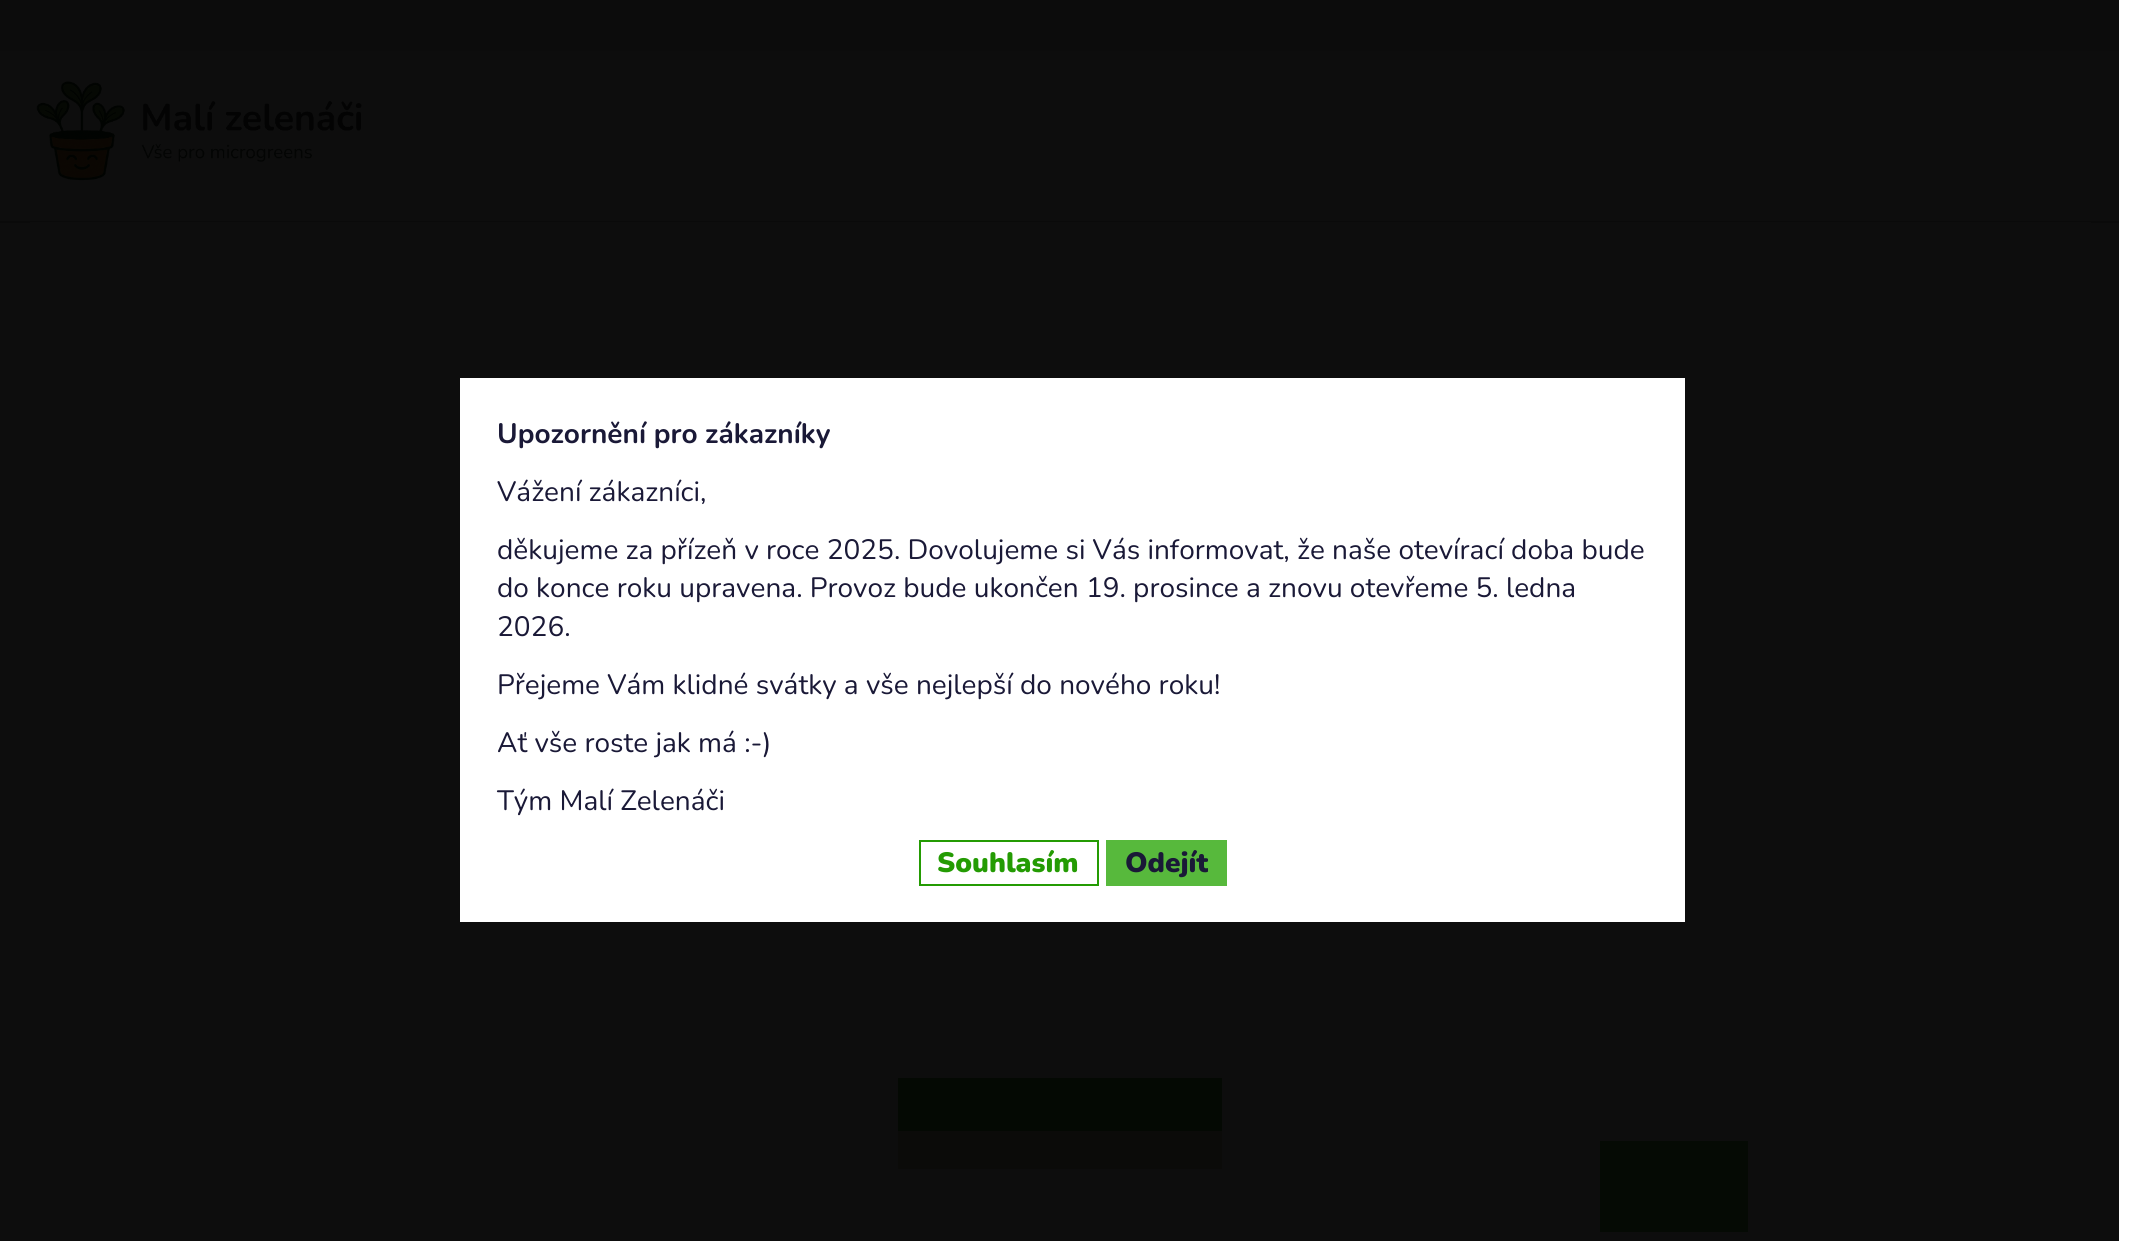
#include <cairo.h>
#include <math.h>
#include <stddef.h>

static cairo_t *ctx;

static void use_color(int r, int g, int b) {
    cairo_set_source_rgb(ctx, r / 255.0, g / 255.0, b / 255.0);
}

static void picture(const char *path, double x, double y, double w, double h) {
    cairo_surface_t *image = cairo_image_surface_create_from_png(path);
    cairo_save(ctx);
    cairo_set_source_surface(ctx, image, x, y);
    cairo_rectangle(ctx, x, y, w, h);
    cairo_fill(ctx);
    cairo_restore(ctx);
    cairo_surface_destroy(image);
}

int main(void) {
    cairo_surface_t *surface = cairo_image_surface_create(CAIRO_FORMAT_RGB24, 2145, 1241);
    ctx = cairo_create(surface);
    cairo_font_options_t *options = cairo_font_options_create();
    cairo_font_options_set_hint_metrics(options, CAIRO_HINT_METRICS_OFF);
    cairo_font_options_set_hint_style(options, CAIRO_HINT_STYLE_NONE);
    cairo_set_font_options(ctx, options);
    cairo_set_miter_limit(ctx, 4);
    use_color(255, 255, 255);
    cairo_paint(ctx);
    use_color(13, 13, 13);
    cairo_rectangle(ctx, 0, 51, 2119, 1190);
    cairo_fill(ctx);
    use_color(12, 12, 12);
    cairo_rectangle(ctx, 0, 0, 2119, 51);
    cairo_fill(ctx);
    picture("img1.png", 36, 81, 326, 100);
    use_color(10, 10, 10);
    cairo_rectangle(ctx, 0, 221, 2119, 2);
    cairo_fill(ctx);
    use_color(13, 13, 13);
    cairo_rectangle(ctx, 30, 222, 2061, 1);
    cairo_fill(ctx);
    use_color(4, 9, 3);
    cairo_rectangle(ctx, 898, 1078, 324, 91);
    cairo_fill(ctx);
    use_color(255, 255, 255);
    cairo_rectangle(ctx, 460, 378, 1225, 544);
    cairo_fill(ctx);
    cairo_select_font_face(ctx, "Nunito", CAIRO_FONT_SLANT_NORMAL, CAIRO_FONT_WEIGHT_BOLD);
    cairo_set_font_size(ctx, 28);
    use_color(26, 25, 55);
    cairo_move_to(ctx, 497, 443);
    cairo_show_text(ctx, "Upozornění pro zákazníky");
    cairo_select_font_face(ctx, "Nunito", CAIRO_FONT_SLANT_NORMAL, CAIRO_FONT_WEIGHT_NORMAL);
    cairo_move_to(ctx, 497, 501);
    cairo_show_text(ctx, "Vážení zákazníci,");
    cairo_move_to(ctx, 497, 559);
    cairo_show_text(ctx, "děkujeme za přízeň v roce 2025. Dovolujeme si Vás informovat, že naše otevírací doba bude");
    cairo_move_to(ctx, 497, 597);
    cairo_show_text(ctx, "do konce roku upravena. Provoz bude ukončen 19. prosince a znovu otevřeme 5. ledna");
    cairo_move_to(ctx, 497, 636);
    cairo_show_text(ctx, "2026.");
    cairo_move_to(ctx, 497, 694);
    cairo_show_text(ctx, "Přejeme Vám klidné svátky a vše nejlepší do nového roku!");
    cairo_move_to(ctx, 497, 752);
    cairo_show_text(ctx, "Ať vše roste jak má :-)");
    cairo_move_to(ctx, 497, 810);
    cairo_show_text(ctx, "Tým Malí Zelenáči");
    cairo_rectangle(ctx, 920, 841, 178, 44);
    use_color(36, 155, 3);
    cairo_stroke(ctx);
    cairo_select_font_face(ctx, "Nunito Black", CAIRO_FONT_SLANT_NORMAL, CAIRO_FONT_WEIGHT_NORMAL);
    cairo_move_to(ctx, 937, 872);
    cairo_show_text(ctx, "Souhlasím");
    use_color(87, 185, 60);
    cairo_rectangle(ctx, 1106, 840, 121, 46);
    cairo_fill(ctx);
    use_color(26, 25, 55);
    cairo_move_to(ctx, 1125, 872);
    cairo_show_text(ctx, "Odejít");
    cairo_set_source_rgba(ctx, 0.051, 0.047, 0.043, 0.9);
    cairo_rectangle(ctx, 898, 1131, 324, 38);
    cairo_fill(ctx);
    use_color(5, 10, 4);
    cairo_rectangle(ctx, 1600, 1141, 148, 91);
    cairo_fill(ctx);
    cairo_surface_write_to_png(surface, "result.png");
    cairo_font_options_destroy(options);
    cairo_destroy(ctx);
    cairo_surface_destroy(surface);
    return 0;
}
